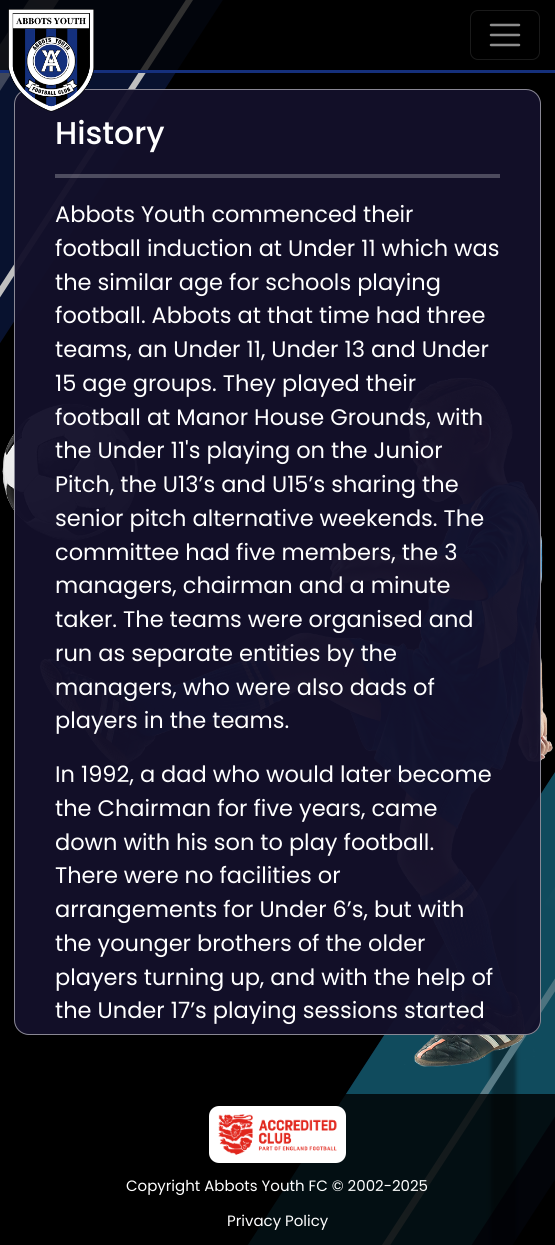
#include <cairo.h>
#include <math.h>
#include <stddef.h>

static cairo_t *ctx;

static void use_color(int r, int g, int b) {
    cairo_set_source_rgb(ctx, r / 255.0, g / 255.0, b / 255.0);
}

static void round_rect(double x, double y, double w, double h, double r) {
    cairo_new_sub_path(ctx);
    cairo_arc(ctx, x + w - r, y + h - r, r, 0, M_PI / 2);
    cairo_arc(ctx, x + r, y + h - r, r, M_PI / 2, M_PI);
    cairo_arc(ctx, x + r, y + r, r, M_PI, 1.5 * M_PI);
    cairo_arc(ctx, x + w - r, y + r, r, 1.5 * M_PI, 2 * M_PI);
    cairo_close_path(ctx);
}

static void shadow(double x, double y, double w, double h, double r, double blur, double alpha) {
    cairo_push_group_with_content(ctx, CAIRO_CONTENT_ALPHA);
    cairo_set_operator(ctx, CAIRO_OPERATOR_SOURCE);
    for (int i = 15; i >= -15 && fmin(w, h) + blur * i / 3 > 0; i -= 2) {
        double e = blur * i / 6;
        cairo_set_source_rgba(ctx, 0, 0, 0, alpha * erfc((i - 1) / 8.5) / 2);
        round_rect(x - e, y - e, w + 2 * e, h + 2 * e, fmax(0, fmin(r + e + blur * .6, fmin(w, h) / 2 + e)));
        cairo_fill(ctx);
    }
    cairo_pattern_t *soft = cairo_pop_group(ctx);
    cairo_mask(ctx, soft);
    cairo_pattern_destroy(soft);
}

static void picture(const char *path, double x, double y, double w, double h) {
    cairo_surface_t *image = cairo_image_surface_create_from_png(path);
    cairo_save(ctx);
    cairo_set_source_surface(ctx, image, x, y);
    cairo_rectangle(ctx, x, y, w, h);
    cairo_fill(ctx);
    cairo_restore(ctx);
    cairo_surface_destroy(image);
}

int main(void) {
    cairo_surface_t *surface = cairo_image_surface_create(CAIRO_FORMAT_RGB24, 555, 1245);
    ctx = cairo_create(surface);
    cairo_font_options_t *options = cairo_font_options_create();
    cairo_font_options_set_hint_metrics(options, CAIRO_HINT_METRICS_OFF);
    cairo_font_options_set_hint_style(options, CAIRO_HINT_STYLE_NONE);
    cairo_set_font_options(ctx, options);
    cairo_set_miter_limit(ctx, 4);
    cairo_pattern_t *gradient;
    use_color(0, 0, 0);
    cairo_paint(ctx);
    use_color(8, 18, 47);
    cairo_new_path(ctx);
    cairo_move_to(ctx, 529, -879);
    cairo_line_to(ctx, 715, -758);
    cairo_line_to(ctx, -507, 1124);
    cairo_line_to(ctx, -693, 1003);
    cairo_close_path(ctx);
    cairo_fill(ctx);
    gradient = cairo_pattern_create_linear(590, -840, -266, 478);
    cairo_pattern_add_color_stop_rgba(gradient, 0, 0.749, 0.749, 0.749, 1);
    cairo_pattern_add_color_stop_rgba(gradient, 1, 0.031, 0.071, 0.184, 1);
    cairo_set_source(ctx, gradient);
    cairo_pattern_destroy(gradient);
    cairo_new_path(ctx);
    cairo_move_to(ctx, 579, -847);
    cairo_line_to(ctx, 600, -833);
    cairo_line_to(ctx, -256, 485);
    cairo_line_to(ctx, -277, 471);
    cairo_close_path(ctx);
    cairo_fill(ctx);
    use_color(191, 191, 191);
    cairo_new_path(ctx);
    cairo_move_to(ctx, 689, -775);
    cairo_line_to(ctx, 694, -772);
    cairo_line_to(ctx, -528, 1111);
    cairo_line_to(ctx, -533, 1107);
    cairo_close_path(ctx);
    cairo_fill(ctx);
    use_color(8, 18, 47);
    cairo_new_path(ctx);
    cairo_move_to(ctx, 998, 90);
    cairo_line_to(ctx, 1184, 211);
    cairo_line_to(ctx, 167, 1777);
    cairo_line_to(ctx, -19, 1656);
    cairo_close_path(ctx);
    cairo_fill(ctx);
    use_color(16, 75, 93);
    cairo_new_path(ctx);
    cairo_move_to(ctx, 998, 90);
    cairo_line_to(ctx, 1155, 192);
    cairo_line_to(ctx, 138, 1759);
    cairo_line_to(ctx, -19, 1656);
    cairo_close_path(ctx);
    cairo_fill(ctx);
    cairo_save(ctx);
    cairo_new_path(ctx);
    cairo_move_to(ctx, 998, 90);
    cairo_line_to(ctx, 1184.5, 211);
    cairo_line_to(ctx, 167.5, 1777.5);
    cairo_line_to(ctx, -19, 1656.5);
    cairo_close_path(ctx);
    cairo_clip(ctx);
    cairo_set_fill_rule(ctx, CAIRO_FILL_RULE_EVEN_ODD);
    cairo_new_path(ctx);
    cairo_move_to(ctx, 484, 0);
    cairo_line_to(ctx, 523, 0);
    cairo_line_to(ctx, 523, 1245);
    cairo_line_to(ctx, 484, 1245);
    cairo_close_path(ctx);
    cairo_move_to(ctx, 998, 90);
    cairo_line_to(ctx, 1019, 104);
    cairo_line_to(ctx, 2, 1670);
    cairo_line_to(ctx, -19, 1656.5);
    cairo_close_path(ctx);
    cairo_clip(ctx);
    use_color(0, 0, 0);
    shadow(491, -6, 25, 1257, 0, 2, 0.4);
    cairo_restore(ctx);
    gradient = cairo_pattern_create_linear(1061, 131, 553, 914);
    cairo_pattern_add_color_stop_rgba(gradient, 0, 0.749, 0.749, 0.749, 1);
    cairo_pattern_add_color_stop_rgba(gradient, 1, 0.063, 0.294, 0.365, 1);
    cairo_set_source(ctx, gradient);
    cairo_pattern_destroy(gradient);
    cairo_new_path(ctx);
    cairo_move_to(ctx, 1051, 124);
    cairo_line_to(ctx, 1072, 138);
    cairo_line_to(ctx, 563, 921);
    cairo_line_to(ctx, 542, 907);
    cairo_close_path(ctx);
    cairo_fill(ctx);
    gradient = cairo_pattern_create_linear(78, 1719, 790, 623);
    cairo_pattern_add_color_stop_rgba(gradient, 0, 0.749, 0.749, 0.749, 1);
    cairo_pattern_add_color_stop_rgba(gradient, 1, 0.063, 0.294, 0.365, 1);
    cairo_set_source(ctx, gradient);
    cairo_pattern_destroy(gradient);
    cairo_new_path(ctx);
    cairo_move_to(ctx, 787, 621);
    cairo_line_to(ctx, 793, 625);
    cairo_line_to(ctx, 81, 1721);
    cairo_line_to(ctx, 75, 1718);
    cairo_close_path(ctx);
    cairo_fill(ctx);
    cairo_set_source_rgba(ctx, 0, 0, 0, 0.75);
    cairo_rectangle(ctx, 0, 0, 223, 70);
    cairo_fill(ctx);
    use_color(21, 48, 124);
    cairo_rectangle(ctx, 0, 70, 555, 3);
    cairo_fill(ctx);
    round_rect(470.5, 10.5, 69, 49, 7.5);
    use_color(26, 26, 26);
    cairo_set_line_width(ctx, 1);
    cairo_stroke(ctx);
    cairo_new_path(ctx);
    cairo_move_to(ctx, 491, 25);
    cairo_line_to(ctx, 519, 25);
    cairo_move_to(ctx, 491, 35);
    cairo_line_to(ctx, 519, 35);
    cairo_move_to(ctx, 491, 45);
    cairo_line_to(ctx, 519, 45);
    use_color(140, 140, 140);
    cairo_set_line_width(ctx, 2.5);
    cairo_set_line_cap(ctx, CAIRO_LINE_CAP_ROUND);
    cairo_stroke(ctx);
    picture("img2.png", 2, 377, 551, 690);
    cairo_set_source_rgba(ctx, 0.075, 0.063, 0.165, 0.96);
    round_rect(14, 89, 527, 946, 15);
    cairo_fill(ctx);
    round_rect(14.5, 89.5, 526, 945, 14.5);
    cairo_set_source_rgba(ctx, 1, 1, 1, 0.5);
    cairo_set_line_width(ctx, 1);
    cairo_set_line_cap(ctx, CAIRO_LINE_CAP_BUTT);
    cairo_stroke(ctx);
    picture("img1.png", 8, 9, 86, 103);
    cairo_select_font_face(ctx, "Poppins Medium", CAIRO_FONT_SLANT_NORMAL, CAIRO_FONT_WEIGHT_NORMAL);
    cairo_set_font_size(ctx, 31.5);
    use_color(255, 255, 255);
    cairo_move_to(ctx, 55, 144);
    cairo_show_text(ctx, "History");
    cairo_set_source_rgba(ctx, 1, 1, 1, 0.25);
    cairo_rectangle(ctx, 55, 174, 445, 4);
    cairo_fill(ctx);
    cairo_select_font_face(ctx, "Poppins", CAIRO_FONT_SLANT_NORMAL, CAIRO_FONT_WEIGHT_NORMAL);
    cairo_set_font_size(ctx, 22.5);
    use_color(255, 255, 255);
    cairo_move_to(ctx, 55, 222);
    cairo_show_text(ctx, "Abbots Youth commenced their");
    cairo_move_to(ctx, 55, 256);
    cairo_show_text(ctx, "football induction at Under 11 which was");
    cairo_move_to(ctx, 55, 290);
    cairo_show_text(ctx, "the similar age for schools playing");
    cairo_move_to(ctx, 55, 323);
    cairo_show_text(ctx, "football. Abbots at that time had three");
    cairo_move_to(ctx, 55, 357);
    cairo_show_text(ctx, "teams, an Under 11, Under 13 and Under");
    cairo_move_to(ctx, 55, 391);
    cairo_show_text(ctx, "15 age groups. They played their");
    cairo_move_to(ctx, 55, 425);
    cairo_show_text(ctx, "football at Manor House Grounds, with");
    cairo_move_to(ctx, 55, 458);
    cairo_show_text(ctx, "the Under 11's playing on the Junior");
    cairo_move_to(ctx, 55, 492);
    cairo_show_text(ctx, "Pitch, the U13’s and U15’s sharing the");
    cairo_move_to(ctx, 55, 526);
    cairo_show_text(ctx, "senior pitch alternative weekends. The");
    cairo_move_to(ctx, 55, 560);
    cairo_show_text(ctx, "committee had five members, the 3");
    cairo_move_to(ctx, 55, 593);
    cairo_show_text(ctx, "managers, chairman and a minute");
    cairo_move_to(ctx, 55, 627);
    cairo_show_text(ctx, "taker. The teams were organised and");
    cairo_move_to(ctx, 55, 661);
    cairo_show_text(ctx, "run as separate entities by the");
    cairo_move_to(ctx, 55, 695);
    cairo_show_text(ctx, "managers, who were also dads of");
    cairo_move_to(ctx, 55, 728);
    cairo_show_text(ctx, "players in the teams.");
    cairo_move_to(ctx, 55, 782);
    cairo_show_text(ctx, "In 1992, a dad who would later become");
    cairo_move_to(ctx, 55, 816);
    cairo_show_text(ctx, "the Chairman for five years, came");
    cairo_move_to(ctx, 55, 850);
    cairo_show_text(ctx, "down with his son to play football.");
    cairo_move_to(ctx, 55, 883);
    cairo_show_text(ctx, "There were no facilities or");
    cairo_move_to(ctx, 55, 917);
    cairo_show_text(ctx, "arrangements for Under 6’s, but with");
    cairo_move_to(ctx, 55, 951);
    cairo_show_text(ctx, "the younger brothers of the older");
    cairo_move_to(ctx, 55, 985);
    cairo_show_text(ctx, "players turning up, and with the help of");
    cairo_move_to(ctx, 55, 1018);
    cairo_show_text(ctx, "the Under 17’s playing sessions started");
    cairo_set_source_rgba(ctx, 0, 0, 0, 0.8);
    cairo_rectangle(ctx, 248, 1094, 307, 151);
    cairo_fill(ctx);
    use_color(255, 255, 255);
    round_rect(209, 1106, 137, 57, 10);
    cairo_fill(ctx);
    picture("img3.png", 218, 1114, 119, 41);
    cairo_set_font_size(ctx, 15);
    cairo_move_to(ctx, 126, 1191);
    cairo_show_text(ctx, "Copyright Abbots Youth FC © 2002-2025");
    cairo_move_to(ctx, 227, 1226);
    cairo_show_text(ctx, "Privacy Policy");
    cairo_surface_write_to_png(surface, "result.png");
    cairo_font_options_destroy(options);
    cairo_destroy(ctx);
    cairo_surface_destroy(surface);
    return 0;
}
